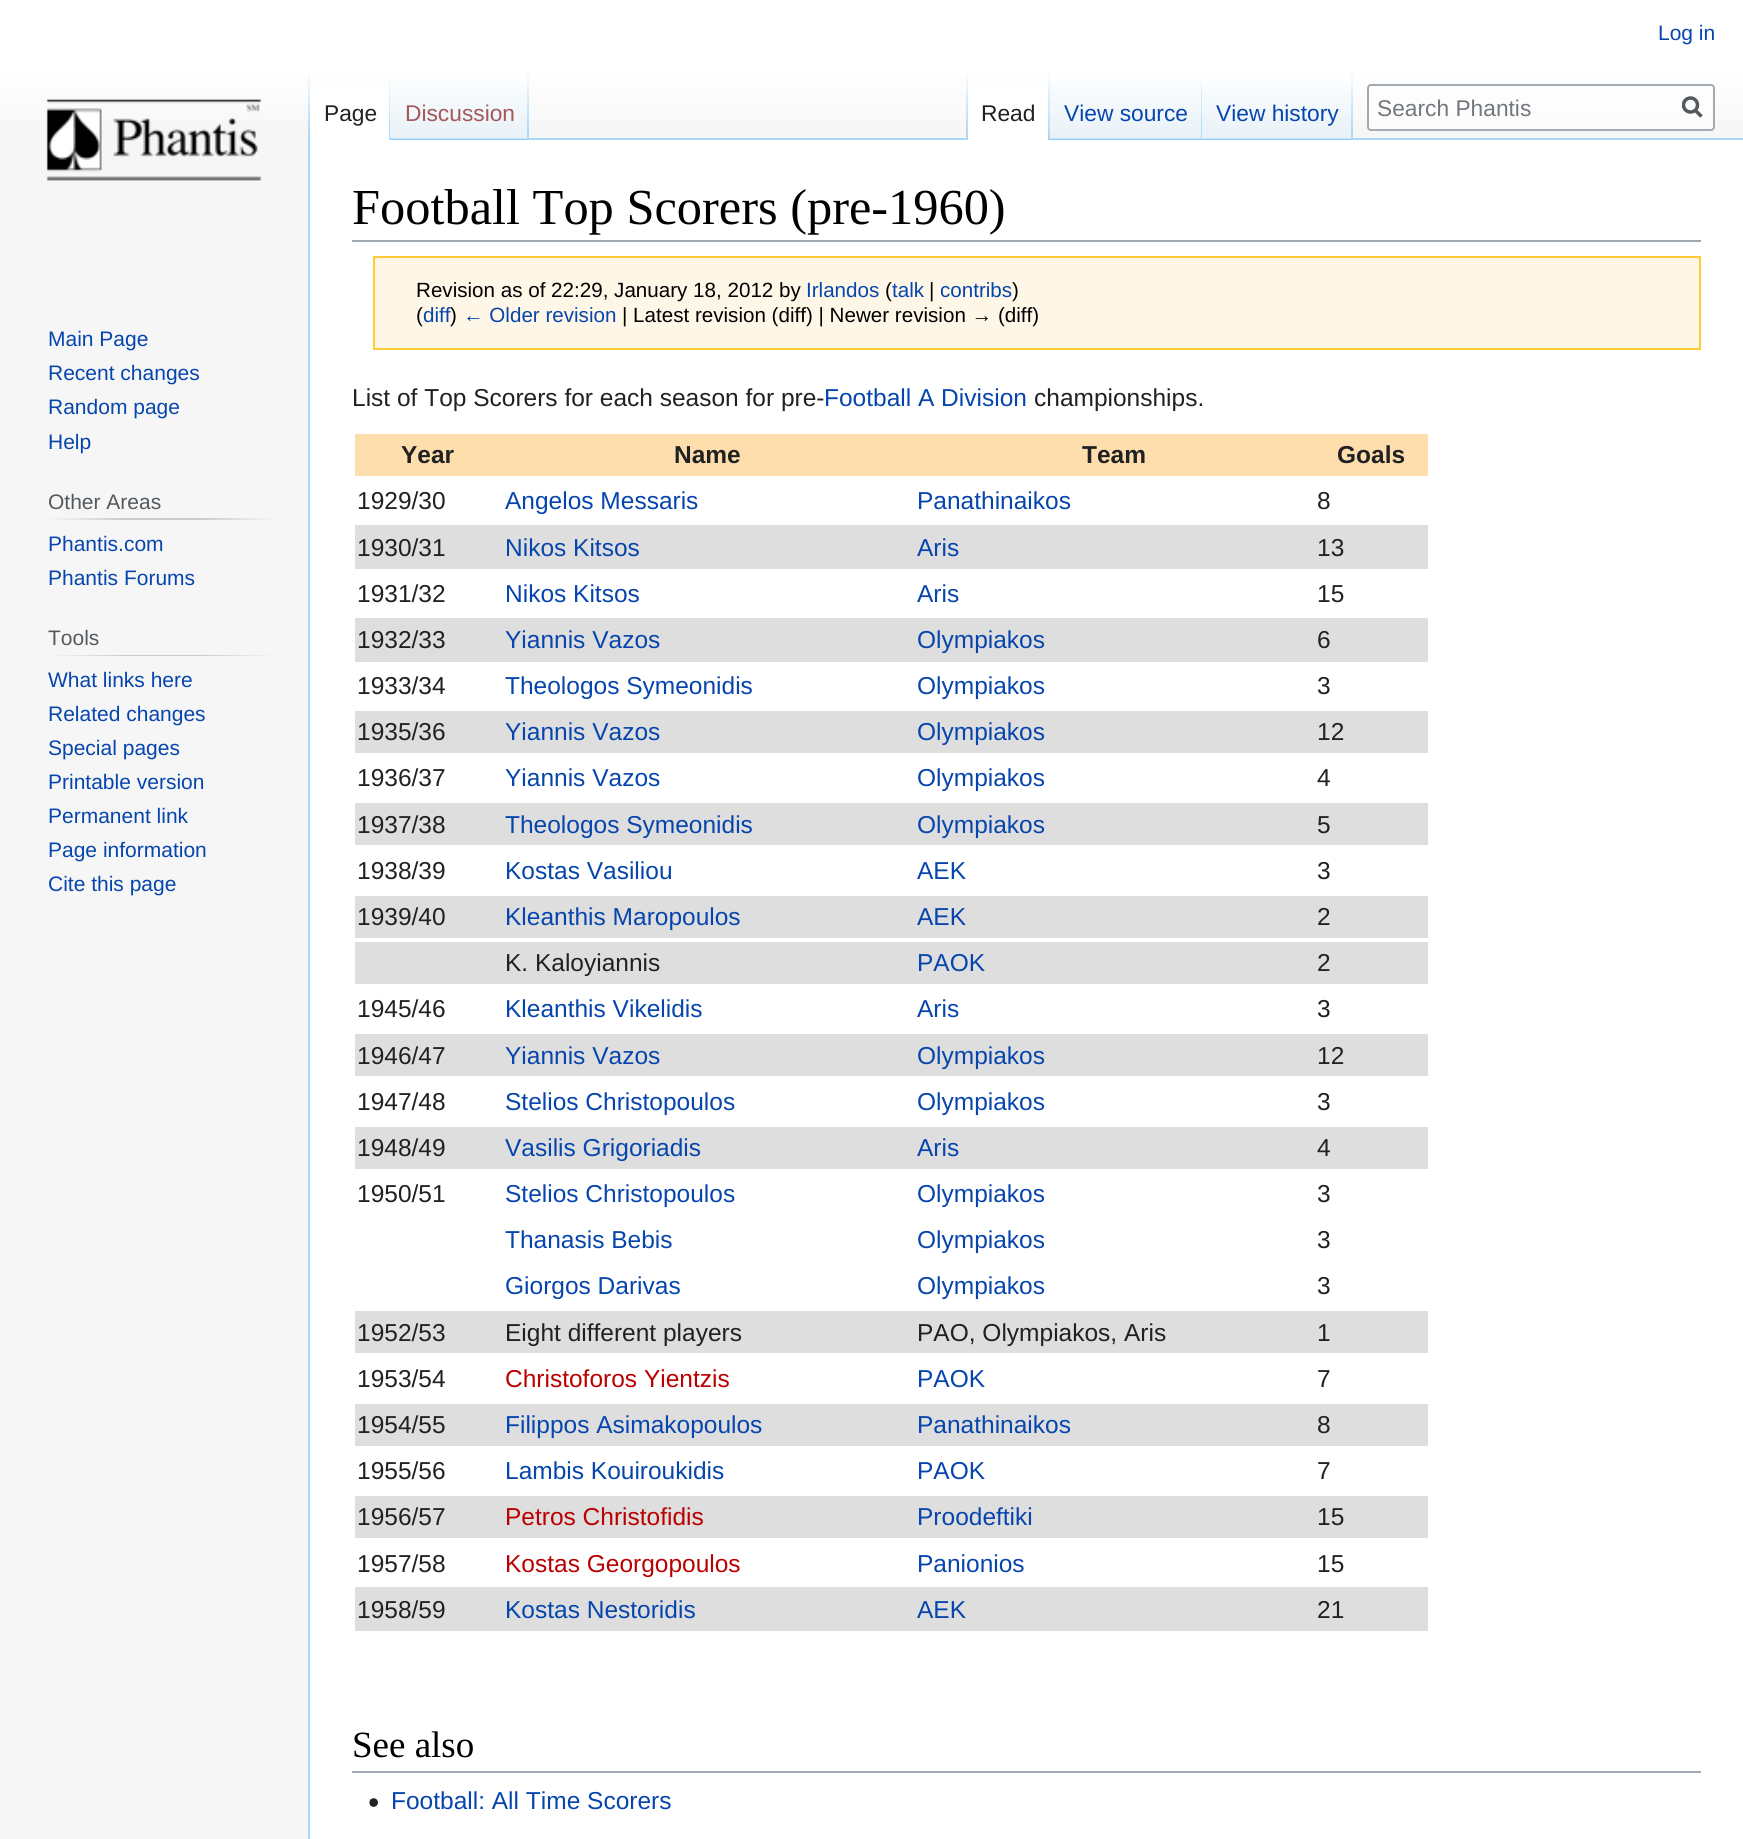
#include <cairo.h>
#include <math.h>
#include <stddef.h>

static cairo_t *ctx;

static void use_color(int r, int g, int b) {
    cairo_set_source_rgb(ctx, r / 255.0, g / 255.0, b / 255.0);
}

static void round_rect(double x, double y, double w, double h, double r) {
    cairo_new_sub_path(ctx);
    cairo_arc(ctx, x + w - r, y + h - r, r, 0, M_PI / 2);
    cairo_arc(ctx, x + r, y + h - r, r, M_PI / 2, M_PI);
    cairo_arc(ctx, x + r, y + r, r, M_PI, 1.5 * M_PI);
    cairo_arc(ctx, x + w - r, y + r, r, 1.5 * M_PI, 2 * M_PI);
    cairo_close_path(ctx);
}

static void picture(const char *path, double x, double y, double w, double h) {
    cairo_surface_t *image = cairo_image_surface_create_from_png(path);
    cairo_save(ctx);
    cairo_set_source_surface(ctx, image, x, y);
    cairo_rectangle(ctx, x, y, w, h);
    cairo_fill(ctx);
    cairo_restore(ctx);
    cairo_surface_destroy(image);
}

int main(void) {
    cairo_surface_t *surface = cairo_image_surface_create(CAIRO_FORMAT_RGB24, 1743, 1839);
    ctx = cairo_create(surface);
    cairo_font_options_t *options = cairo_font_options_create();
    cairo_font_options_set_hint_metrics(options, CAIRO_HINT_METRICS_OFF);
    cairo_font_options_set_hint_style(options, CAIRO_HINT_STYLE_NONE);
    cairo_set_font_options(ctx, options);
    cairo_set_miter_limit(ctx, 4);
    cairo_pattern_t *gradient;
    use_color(246, 246, 246);
    cairo_paint(ctx);
    gradient = cairo_pattern_create_linear(872, 0, 872, 140);
    cairo_pattern_add_color_stop_rgba(gradient, 0.5, 1, 1, 1, 1);
    cairo_pattern_add_color_stop_rgba(gradient, 1, 0.965, 0.965, 0.965, 1);
    cairo_set_source(ctx, gradient);
    cairo_pattern_destroy(gradient);
    cairo_rectangle(ctx, 0, 0, 1743, 121);
    cairo_fill(ctx);
    cairo_select_font_face(ctx, "Liberation Sans", CAIRO_FONT_SLANT_NORMAL, CAIRO_FONT_WEIGHT_NORMAL);
    cairo_set_font_size(ctx, 21);
    use_color(6, 69, 173);
    cairo_move_to(ctx, 1658, 40);
    cairo_show_text(ctx, "Log in");
    use_color(167, 215, 249);
    cairo_rectangle(ctx, 308, 138, 2, 1701);
    cairo_fill(ctx);
    gradient = cairo_pattern_create_linear(309, 70, 309, 140);
    cairo_pattern_add_color_stop_rgba(gradient, 0, 0.655, 0.843, 0.976, 0);
    cairo_pattern_add_color_stop_rgba(gradient, 1, 0.655, 0.843, 0.976, 1);
    cairo_set_source(ctx, gradient);
    cairo_pattern_destroy(gradient);
    cairo_rectangle(ctx, 308, 70, 2, 70);
    cairo_fill(ctx);
    use_color(255, 255, 255);
    cairo_rectangle(ctx, 310, 89, 79, 51);
    cairo_fill(ctx);
    gradient = cairo_pattern_create_linear(389, 70, 389, 140);
    cairo_pattern_add_color_stop_rgba(gradient, 0, 1, 1, 1, 1);
    cairo_pattern_add_color_stop_rgba(gradient, 1, 0.655, 0.843, 0.976, 1);
    cairo_set_source(ctx, gradient);
    cairo_pattern_destroy(gradient);
    cairo_rectangle(ctx, 389, 70, 1, 70);
    cairo_fill(ctx);
    cairo_set_font_size(ctx, 22.75);
    use_color(32, 33, 34);
    cairo_move_to(ctx, 324, 121);
    cairo_show_text(ctx, "Page");
    gradient = cairo_pattern_create_linear(459, 140, 459, 70);
    cairo_pattern_add_color_stop_rgba(gradient, 0, 0.467, 0.757, 0.965, 1);
    cairo_pattern_add_color_stop_rgba(gradient, 0.03, 0.91, 0.949, 0.973, 1);
    cairo_pattern_add_color_stop_rgba(gradient, 1, 1, 1, 1, 1);
    cairo_set_source(ctx, gradient);
    cairo_pattern_destroy(gradient);
    cairo_rectangle(ctx, 390, 80, 139, 60);
    cairo_fill(ctx);
    gradient = cairo_pattern_create_linear(528, 70, 528, 140);
    cairo_pattern_add_color_stop_rgba(gradient, 0, 0.655, 0.843, 0.976, 0);
    cairo_pattern_add_color_stop_rgba(gradient, 1, 0.655, 0.843, 0.976, 1);
    cairo_set_source(ctx, gradient);
    cairo_pattern_destroy(gradient);
    cairo_rectangle(ctx, 527, 70, 2, 70);
    cairo_fill(ctx);
    use_color(165, 88, 88);
    cairo_move_to(ctx, 405, 121);
    cairo_show_text(ctx, "Discussion");
    use_color(167, 215, 249);
    cairo_rectangle(ctx, 529, 138, 1214, 2);
    cairo_fill(ctx);
    gradient = cairo_pattern_create_linear(967, 70, 967, 140);
    cairo_pattern_add_color_stop_rgba(gradient, 0, 0.655, 0.843, 0.976, 0);
    cairo_pattern_add_color_stop_rgba(gradient, 1, 0.655, 0.843, 0.976, 1);
    cairo_set_source(ctx, gradient);
    cairo_pattern_destroy(gradient);
    cairo_rectangle(ctx, 966, 70, 2, 70);
    cairo_fill(ctx);
    use_color(255, 255, 255);
    cairo_rectangle(ctx, 968, 89, 80, 51);
    cairo_fill(ctx);
    gradient = cairo_pattern_create_linear(1049, 70, 1049, 140);
    cairo_pattern_add_color_stop_rgba(gradient, 0, 1, 1, 1, 1);
    cairo_pattern_add_color_stop_rgba(gradient, 1, 0.655, 0.843, 0.976, 1);
    cairo_set_source(ctx, gradient);
    cairo_pattern_destroy(gradient);
    cairo_rectangle(ctx, 1048, 70, 2, 70);
    cairo_fill(ctx);
    use_color(32, 33, 34);
    cairo_move_to(ctx, 981, 121);
    cairo_show_text(ctx, "Read");
    gradient = cairo_pattern_create_linear(1126, 140, 1126, 70);
    cairo_pattern_add_color_stop_rgba(gradient, 0, 0.467, 0.757, 0.965, 1);
    cairo_pattern_add_color_stop_rgba(gradient, 0.03, 0.91, 0.949, 0.973, 1);
    cairo_pattern_add_color_stop_rgba(gradient, 1, 1, 1, 1, 1);
    cairo_set_source(ctx, gradient);
    cairo_pattern_destroy(gradient);
    cairo_rectangle(ctx, 1050, 80, 152, 60);
    cairo_fill(ctx);
    gradient = cairo_pattern_create_linear(1201, 70, 1201, 140);
    cairo_pattern_add_color_stop_rgba(gradient, 0, 0.655, 0.843, 0.976, 0);
    cairo_pattern_add_color_stop_rgba(gradient, 1, 0.655, 0.843, 0.976, 1);
    cairo_set_source(ctx, gradient);
    cairo_pattern_destroy(gradient);
    cairo_rectangle(ctx, 1201, 70, 1, 70);
    cairo_fill(ctx);
    use_color(6, 69, 173);
    cairo_move_to(ctx, 1064, 121);
    cairo_show_text(ctx, "View source");
    gradient = cairo_pattern_create_linear(1278, 140, 1278, 70);
    cairo_pattern_add_color_stop_rgba(gradient, 0, 0.467, 0.757, 0.965, 1);
    cairo_pattern_add_color_stop_rgba(gradient, 0.03, 0.91, 0.949, 0.973, 1);
    cairo_pattern_add_color_stop_rgba(gradient, 1, 1, 1, 1, 1);
    cairo_set_source(ctx, gradient);
    cairo_pattern_destroy(gradient);
    cairo_rectangle(ctx, 1202, 80, 151, 60);
    cairo_fill(ctx);
    gradient = cairo_pattern_create_linear(1352, 70, 1352, 140);
    cairo_pattern_add_color_stop_rgba(gradient, 0, 0.655, 0.843, 0.976, 0);
    cairo_pattern_add_color_stop_rgba(gradient, 1, 0.655, 0.843, 0.976, 1);
    cairo_set_source(ctx, gradient);
    cairo_pattern_destroy(gradient);
    cairo_rectangle(ctx, 1351, 70, 2, 70);
    cairo_fill(ctx);
    use_color(6, 69, 173);
    cairo_move_to(ctx, 1216, 121);
    cairo_show_text(ctx, "View history");
    cairo_set_source_rgba(ctx, 1, 1, 1, 0.5);
    round_rect(1368, 85, 346, 45, 3);
    cairo_fill_preserve(ctx);
    use_color(162, 169, 177);
    cairo_stroke(ctx);
    use_color(114, 119, 125);
    cairo_move_to(ctx, 1377, 116);
    cairo_show_text(ctx, "Search Phantis");
    cairo_new_path(ctx);
    cairo_move_to(ctx, 1701.5, 116.5);
    cairo_line_to(ctx, 1694.5, 109.5);
    use_color(84, 89, 93);
    cairo_set_line_width(ctx, 3.5);
    cairo_stroke(ctx);
    cairo_save(ctx);
    cairo_rectangle(ctx, 1682, 96, 21, 23);
    cairo_clip(ctx);
    cairo_arc(ctx, 1690.5, 105, 7, 0, 2 * M_PI);
    cairo_stroke(ctx);
    cairo_restore(ctx);
    picture("img1.png", 46, 99, 216, 82);
    cairo_set_font_size(ctx, 21);
    use_color(6, 69, 173);
    cairo_move_to(ctx, 48, 346);
    cairo_show_text(ctx, "Main Page");
    cairo_move_to(ctx, 48, 380);
    cairo_show_text(ctx, "Recent changes");
    cairo_move_to(ctx, 48, 414);
    cairo_show_text(ctx, "Random page");
    cairo_move_to(ctx, 48, 449);
    cairo_show_text(ctx, "Help");
    gradient = cairo_pattern_create_linear(47, 519, 277, 519);
    cairo_pattern_add_color_stop_rgba(gradient, 0, 0.965, 0.965, 0.965, 1);
    cairo_pattern_add_color_stop_rgba(gradient, 0.33, 0.784, 0.8, 0.82, 1);
    cairo_pattern_add_color_stop_rgba(gradient, 0.66, 0.784, 0.8, 0.82, 1);
    cairo_pattern_add_color_stop_rgba(gradient, 1, 0.965, 0.965, 0.965, 1);
    cairo_set_source(ctx, gradient);
    cairo_pattern_destroy(gradient);
    cairo_rectangle(ctx, 47, 518, 230, 2);
    cairo_fill(ctx);
    use_color(84, 89, 93);
    cairo_move_to(ctx, 48, 509);
    cairo_show_text(ctx, "Other Areas");
    use_color(6, 69, 173);
    cairo_move_to(ctx, 48, 551);
    cairo_show_text(ctx, "Phantis.com");
    cairo_move_to(ctx, 48, 585);
    cairo_show_text(ctx, "Phantis Forums");
    gradient = cairo_pattern_create_linear(47, 655, 277, 655);
    cairo_pattern_add_color_stop_rgba(gradient, 0, 0.965, 0.965, 0.965, 1);
    cairo_pattern_add_color_stop_rgba(gradient, 0.33, 0.784, 0.8, 0.82, 1);
    cairo_pattern_add_color_stop_rgba(gradient, 0.66, 0.784, 0.8, 0.82, 1);
    cairo_pattern_add_color_stop_rgba(gradient, 1, 0.965, 0.965, 0.965, 1);
    cairo_set_source(ctx, gradient);
    cairo_pattern_destroy(gradient);
    cairo_rectangle(ctx, 47, 655, 230, 1);
    cairo_fill(ctx);
    use_color(84, 89, 93);
    cairo_move_to(ctx, 48, 645);
    cairo_show_text(ctx, "Tools");
    use_color(6, 69, 173);
    cairo_move_to(ctx, 48, 687);
    cairo_show_text(ctx, "What links here");
    cairo_move_to(ctx, 48, 721);
    cairo_show_text(ctx, "Related changes");
    cairo_move_to(ctx, 48, 755);
    cairo_show_text(ctx, "Special pages");
    cairo_move_to(ctx, 48, 789);
    cairo_show_text(ctx, "Printable version");
    cairo_move_to(ctx, 48, 823);
    cairo_show_text(ctx, "Permanent link");
    cairo_move_to(ctx, 48, 857);
    cairo_show_text(ctx, "Page information");
    cairo_move_to(ctx, 48, 891);
    cairo_show_text(ctx, "Cite this page");
    use_color(255, 255, 255);
    cairo_rectangle(ctx, 310, 140, 1433, 1699);
    cairo_fill(ctx);
    use_color(162, 169, 177);
    cairo_rectangle(ctx, 352, 240, 1349, 2);
    cairo_fill(ctx);
    cairo_select_font_face(ctx, "Liberation Serif", CAIRO_FONT_SLANT_NORMAL, CAIRO_FONT_WEIGHT_NORMAL);
    cairo_set_font_size(ctx, 50.4);
    use_color(0, 0, 0);
    cairo_move_to(ctx, 352, 224);
    cairo_show_text(ctx, "Football Top Scorers (pre-1960)");
    use_color(254, 246, 231);
    cairo_rectangle(ctx, 374, 257, 1326, 92);
    cairo_fill_preserve(ctx);
    use_color(255, 204, 51);
    cairo_set_line_width(ctx, 2);
    cairo_stroke(ctx);
    cairo_select_font_face(ctx, "Liberation Sans", CAIRO_FONT_SLANT_NORMAL, CAIRO_FONT_WEIGHT_NORMAL);
    cairo_set_font_size(ctx, 20.6);
    use_color(0, 0, 0);
    cairo_move_to(ctx, 416, 297);
    cairo_show_text(ctx, "Revision as of 22:29, January 18, 2012 by");
    use_color(6, 69, 173);
    cairo_move_to(ctx, 806, 297);
    cairo_show_text(ctx, "Irlandos");
    use_color(0, 0, 0);
    cairo_move_to(ctx, 885, 297);
    cairo_show_text(ctx, "(");
    use_color(6, 69, 173);
    cairo_move_to(ctx, 892, 297);
    cairo_show_text(ctx, "talk");
    use_color(0, 0, 0);
    cairo_move_to(ctx, 929, 297);
    cairo_show_text(ctx, "|");
    use_color(6, 69, 173);
    cairo_move_to(ctx, 940, 297);
    cairo_show_text(ctx, "contribs");
    use_color(0, 0, 0);
    cairo_move_to(ctx, 1012, 297);
    cairo_show_text(ctx, ")");
    cairo_move_to(ctx, 416, 322);
    cairo_show_text(ctx, "(");
    use_color(6, 69, 173);
    cairo_move_to(ctx, 423, 322);
    cairo_show_text(ctx, "diff");
    use_color(0, 0, 0);
    cairo_move_to(ctx, 450, 322);
    cairo_show_text(ctx, ")");
    use_color(6, 69, 173);
    cairo_move_to(ctx, 463, 322);
    cairo_show_text(ctx, "← Older revision");
    use_color(0, 0, 0);
    cairo_move_to(ctx, 622, 322);
    cairo_show_text(ctx, "| Latest revision (diff) | Newer revision → (diff)");
    cairo_set_font_size(ctx, 24.5);
    use_color(32, 33, 34);
    cairo_move_to(ctx, 352, 406);
    cairo_show_text(ctx, "List of Top Scorers for each season for pre-");
    use_color(6, 69, 173);
    cairo_move_to(ctx, 824, 406);
    cairo_show_text(ctx, "Football A Division");
    use_color(32, 33, 34);
    cairo_move_to(ctx, 1034, 406);
    cairo_show_text(ctx, "championships.");
    use_color(255, 222, 173);
    cairo_rectangle(ctx, 355, 434, 1073, 42);
    cairo_fill(ctx);
    cairo_select_font_face(ctx, "Liberation Sans", CAIRO_FONT_SLANT_NORMAL, CAIRO_FONT_WEIGHT_BOLD);
    use_color(32, 33, 34);
    cairo_move_to(ctx, 401, 463);
    cairo_show_text(ctx, "Year");
    cairo_move_to(ctx, 674, 463);
    cairo_show_text(ctx, "Name");
    cairo_move_to(ctx, 1082, 463);
    cairo_show_text(ctx, "Team");
    cairo_move_to(ctx, 1337, 463);
    cairo_show_text(ctx, "Goals");
    cairo_select_font_face(ctx, "Liberation Sans", CAIRO_FONT_SLANT_NORMAL, CAIRO_FONT_WEIGHT_NORMAL);
    cairo_move_to(ctx, 357, 509);
    cairo_show_text(ctx, "1929/30");
    use_color(6, 69, 173);
    cairo_move_to(ctx, 505, 509);
    cairo_show_text(ctx, "Angelos Messaris");
    cairo_move_to(ctx, 917, 509);
    cairo_show_text(ctx, "Panathinaikos");
    use_color(32, 33, 34);
    cairo_move_to(ctx, 1317, 509);
    cairo_show_text(ctx, "8");
    use_color(222, 222, 222);
    cairo_rectangle(ctx, 355, 525, 1073, 44);
    cairo_fill(ctx);
    use_color(32, 33, 34);
    cairo_move_to(ctx, 357, 556);
    cairo_show_text(ctx, "1930/31");
    use_color(6, 69, 173);
    cairo_move_to(ctx, 505, 556);
    cairo_show_text(ctx, "Nikos Kitsos");
    cairo_move_to(ctx, 917, 556);
    cairo_show_text(ctx, "Aris");
    use_color(32, 33, 34);
    cairo_move_to(ctx, 1317, 556);
    cairo_show_text(ctx, "13");
    cairo_move_to(ctx, 357, 602);
    cairo_show_text(ctx, "1931/32");
    use_color(6, 69, 173);
    cairo_move_to(ctx, 505, 602);
    cairo_show_text(ctx, "Nikos Kitsos");
    cairo_move_to(ctx, 917, 602);
    cairo_show_text(ctx, "Aris");
    use_color(32, 33, 34);
    cairo_move_to(ctx, 1317, 602);
    cairo_show_text(ctx, "15");
    use_color(222, 222, 222);
    cairo_rectangle(ctx, 355, 618, 1073, 44);
    cairo_fill(ctx);
    use_color(32, 33, 34);
    cairo_move_to(ctx, 357, 648);
    cairo_show_text(ctx, "1932/33");
    use_color(6, 69, 173);
    cairo_move_to(ctx, 505, 648);
    cairo_show_text(ctx, "Yiannis Vazos");
    cairo_move_to(ctx, 917, 648);
    cairo_show_text(ctx, "Olympiakos");
    use_color(32, 33, 34);
    cairo_move_to(ctx, 1317, 648);
    cairo_show_text(ctx, "6");
    cairo_move_to(ctx, 357, 694);
    cairo_show_text(ctx, "1933/34");
    use_color(6, 69, 173);
    cairo_move_to(ctx, 505, 694);
    cairo_show_text(ctx, "Theologos Symeonidis");
    cairo_move_to(ctx, 917, 694);
    cairo_show_text(ctx, "Olympiakos");
    use_color(32, 33, 34);
    cairo_move_to(ctx, 1317, 694);
    cairo_show_text(ctx, "3");
    use_color(222, 222, 222);
    cairo_rectangle(ctx, 355, 711, 1073, 42);
    cairo_fill(ctx);
    use_color(32, 33, 34);
    cairo_move_to(ctx, 357, 740);
    cairo_show_text(ctx, "1935/36");
    use_color(6, 69, 173);
    cairo_move_to(ctx, 505, 740);
    cairo_show_text(ctx, "Yiannis Vazos");
    cairo_move_to(ctx, 917, 740);
    cairo_show_text(ctx, "Olympiakos");
    use_color(32, 33, 34);
    cairo_move_to(ctx, 1317, 740);
    cairo_show_text(ctx, "12");
    cairo_move_to(ctx, 357, 786);
    cairo_show_text(ctx, "1936/37");
    use_color(6, 69, 173);
    cairo_move_to(ctx, 505, 786);
    cairo_show_text(ctx, "Yiannis Vazos");
    cairo_move_to(ctx, 917, 786);
    cairo_show_text(ctx, "Olympiakos");
    use_color(32, 33, 34);
    cairo_move_to(ctx, 1317, 786);
    cairo_show_text(ctx, "4");
    use_color(222, 222, 222);
    cairo_rectangle(ctx, 355, 803, 1073, 42);
    cairo_fill(ctx);
    use_color(32, 33, 34);
    cairo_move_to(ctx, 357, 833);
    cairo_show_text(ctx, "1937/38");
    use_color(6, 69, 173);
    cairo_move_to(ctx, 505, 833);
    cairo_show_text(ctx, "Theologos Symeonidis");
    cairo_move_to(ctx, 917, 833);
    cairo_show_text(ctx, "Olympiakos");
    use_color(32, 33, 34);
    cairo_move_to(ctx, 1317, 833);
    cairo_show_text(ctx, "5");
    cairo_move_to(ctx, 357, 879);
    cairo_show_text(ctx, "1938/39");
    use_color(6, 69, 173);
    cairo_move_to(ctx, 505, 879);
    cairo_show_text(ctx, "Kostas Vasiliou");
    cairo_move_to(ctx, 917, 879);
    cairo_show_text(ctx, "AEK");
    use_color(32, 33, 34);
    cairo_move_to(ctx, 1317, 879);
    cairo_show_text(ctx, "3");
    use_color(222, 222, 222);
    cairo_rectangle(ctx, 355, 896, 1073, 42);
    cairo_fill(ctx);
    use_color(32, 33, 34);
    cairo_move_to(ctx, 357, 925);
    cairo_show_text(ctx, "1939/40");
    use_color(6, 69, 173);
    cairo_move_to(ctx, 505, 925);
    cairo_show_text(ctx, "Kleanthis Maropoulos");
    cairo_move_to(ctx, 917, 925);
    cairo_show_text(ctx, "AEK");
    use_color(32, 33, 34);
    cairo_move_to(ctx, 1317, 925);
    cairo_show_text(ctx, "2");
    use_color(222, 222, 222);
    cairo_rectangle(ctx, 355, 942, 1073, 42);
    cairo_fill(ctx);
    use_color(32, 33, 34);
    cairo_move_to(ctx, 505, 971);
    cairo_show_text(ctx, "K. Kaloyiannis");
    use_color(6, 69, 173);
    cairo_move_to(ctx, 917, 971);
    cairo_show_text(ctx, "PAOK");
    use_color(32, 33, 34);
    cairo_move_to(ctx, 1317, 971);
    cairo_show_text(ctx, "2");
    cairo_move_to(ctx, 357, 1017);
    cairo_show_text(ctx, "1945/46");
    use_color(6, 69, 173);
    cairo_move_to(ctx, 505, 1017);
    cairo_show_text(ctx, "Kleanthis Vikelidis");
    cairo_move_to(ctx, 917, 1017);
    cairo_show_text(ctx, "Aris");
    use_color(32, 33, 34);
    cairo_move_to(ctx, 1317, 1017);
    cairo_show_text(ctx, "3");
    use_color(222, 222, 222);
    cairo_rectangle(ctx, 355, 1034, 1073, 42);
    cairo_fill(ctx);
    use_color(32, 33, 34);
    cairo_move_to(ctx, 357, 1064);
    cairo_show_text(ctx, "1946/47");
    use_color(6, 69, 173);
    cairo_move_to(ctx, 505, 1064);
    cairo_show_text(ctx, "Yiannis Vazos");
    cairo_move_to(ctx, 917, 1064);
    cairo_show_text(ctx, "Olympiakos");
    use_color(32, 33, 34);
    cairo_move_to(ctx, 1317, 1064);
    cairo_show_text(ctx, "12");
    cairo_move_to(ctx, 357, 1110);
    cairo_show_text(ctx, "1947/48");
    use_color(6, 69, 173);
    cairo_move_to(ctx, 505, 1110);
    cairo_show_text(ctx, "Stelios Christopoulos");
    cairo_move_to(ctx, 917, 1110);
    cairo_show_text(ctx, "Olympiakos");
    use_color(32, 33, 34);
    cairo_move_to(ctx, 1317, 1110);
    cairo_show_text(ctx, "3");
    use_color(222, 222, 222);
    cairo_rectangle(ctx, 355, 1127, 1073, 42);
    cairo_fill(ctx);
    use_color(32, 33, 34);
    cairo_move_to(ctx, 357, 1156);
    cairo_show_text(ctx, "1948/49");
    use_color(6, 69, 173);
    cairo_move_to(ctx, 505, 1156);
    cairo_show_text(ctx, "Vasilis Grigoriadis");
    cairo_move_to(ctx, 917, 1156);
    cairo_show_text(ctx, "Aris");
    use_color(32, 33, 34);
    cairo_move_to(ctx, 1317, 1156);
    cairo_show_text(ctx, "4");
    cairo_move_to(ctx, 357, 1202);
    cairo_show_text(ctx, "1950/51");
    use_color(6, 69, 173);
    cairo_move_to(ctx, 505, 1202);
    cairo_show_text(ctx, "Stelios Christopoulos");
    cairo_move_to(ctx, 917, 1202);
    cairo_show_text(ctx, "Olympiakos");
    use_color(32, 33, 34);
    cairo_move_to(ctx, 1317, 1202);
    cairo_show_text(ctx, "3");
    use_color(6, 69, 173);
    cairo_move_to(ctx, 505, 1248);
    cairo_show_text(ctx, "Thanasis Bebis");
    cairo_move_to(ctx, 917, 1248);
    cairo_show_text(ctx, "Olympiakos");
    use_color(32, 33, 34);
    cairo_move_to(ctx, 1317, 1248);
    cairo_show_text(ctx, "3");
    use_color(6, 69, 173);
    cairo_move_to(ctx, 505, 1294);
    cairo_show_text(ctx, "Giorgos Darivas");
    cairo_move_to(ctx, 917, 1294);
    cairo_show_text(ctx, "Olympiakos");
    use_color(32, 33, 34);
    cairo_move_to(ctx, 1317, 1294);
    cairo_show_text(ctx, "3");
    use_color(222, 222, 222);
    cairo_rectangle(ctx, 355, 1311, 1073, 42);
    cairo_fill(ctx);
    use_color(32, 33, 34);
    cairo_move_to(ctx, 357, 1341);
    cairo_show_text(ctx, "1952/53");
    cairo_move_to(ctx, 505, 1341);
    cairo_show_text(ctx, "Eight different players");
    cairo_move_to(ctx, 917, 1341);
    cairo_show_text(ctx, "PAO, Olympiakos, Aris");
    cairo_move_to(ctx, 1317, 1341);
    cairo_show_text(ctx, "1");
    cairo_move_to(ctx, 357, 1387);
    cairo_show_text(ctx, "1953/54");
    use_color(186, 0, 0);
    cairo_move_to(ctx, 505, 1387);
    cairo_show_text(ctx, "Christoforos Yientzis");
    use_color(6, 69, 173);
    cairo_move_to(ctx, 917, 1387);
    cairo_show_text(ctx, "PAOK");
    use_color(32, 33, 34);
    cairo_move_to(ctx, 1317, 1387);
    cairo_show_text(ctx, "7");
    use_color(222, 222, 222);
    cairo_rectangle(ctx, 355, 1404, 1073, 42);
    cairo_fill(ctx);
    use_color(32, 33, 34);
    cairo_move_to(ctx, 357, 1433);
    cairo_show_text(ctx, "1954/55");
    use_color(6, 69, 173);
    cairo_move_to(ctx, 505, 1433);
    cairo_show_text(ctx, "Filippos Asimakopoulos");
    cairo_move_to(ctx, 917, 1433);
    cairo_show_text(ctx, "Panathinaikos");
    use_color(32, 33, 34);
    cairo_move_to(ctx, 1317, 1433);
    cairo_show_text(ctx, "8");
    cairo_move_to(ctx, 357, 1479);
    cairo_show_text(ctx, "1955/56");
    use_color(6, 69, 173);
    cairo_move_to(ctx, 505, 1479);
    cairo_show_text(ctx, "Lambis Kouiroukidis");
    cairo_move_to(ctx, 917, 1479);
    cairo_show_text(ctx, "PAOK");
    use_color(32, 33, 34);
    cairo_move_to(ctx, 1317, 1479);
    cairo_show_text(ctx, "7");
    use_color(222, 222, 222);
    cairo_rectangle(ctx, 355, 1496, 1073, 42);
    cairo_fill(ctx);
    use_color(32, 33, 34);
    cairo_move_to(ctx, 357, 1525);
    cairo_show_text(ctx, "1956/57");
    use_color(186, 0, 0);
    cairo_move_to(ctx, 505, 1525);
    cairo_show_text(ctx, "Petros Christofidis");
    use_color(6, 69, 173);
    cairo_move_to(ctx, 917, 1525);
    cairo_show_text(ctx, "Proodeftiki");
    use_color(32, 33, 34);
    cairo_move_to(ctx, 1317, 1525);
    cairo_show_text(ctx, "15");
    cairo_move_to(ctx, 357, 1572);
    cairo_show_text(ctx, "1957/58");
    use_color(186, 0, 0);
    cairo_move_to(ctx, 505, 1572);
    cairo_show_text(ctx, "Kostas Georgopoulos");
    use_color(6, 69, 173);
    cairo_move_to(ctx, 917, 1572);
    cairo_show_text(ctx, "Panionios");
    use_color(32, 33, 34);
    cairo_move_to(ctx, 1317, 1572);
    cairo_show_text(ctx, "15");
    use_color(222, 222, 222);
    cairo_rectangle(ctx, 355, 1587, 1073, 44);
    cairo_fill(ctx);
    use_color(32, 33, 34);
    cairo_move_to(ctx, 357, 1618);
    cairo_show_text(ctx, "1958/59");
    use_color(6, 69, 173);
    cairo_move_to(ctx, 505, 1618);
    cairo_show_text(ctx, "Kostas Nestoridis");
    cairo_move_to(ctx, 917, 1618);
    cairo_show_text(ctx, "AEK");
    use_color(32, 33, 34);
    cairo_move_to(ctx, 1317, 1618);
    cairo_show_text(ctx, "21");
    use_color(162, 169, 177);
    cairo_rectangle(ctx, 352, 1771, 1349, 2);
    cairo_fill(ctx);
    cairo_select_font_face(ctx, "Liberation Serif", CAIRO_FONT_SLANT_NORMAL, CAIRO_FONT_WEIGHT_NORMAL);
    cairo_set_font_size(ctx, 37);
    use_color(0, 0, 0);
    cairo_move_to(ctx, 352, 1757);
    cairo_show_text(ctx, "See also");
    picture("img2.png", 369, 1798, 9, 9);
    cairo_select_font_face(ctx, "Liberation Sans", CAIRO_FONT_SLANT_NORMAL, CAIRO_FONT_WEIGHT_NORMAL);
    cairo_set_font_size(ctx, 24.5);
    use_color(6, 69, 173);
    cairo_move_to(ctx, 391, 1809);
    cairo_show_text(ctx, "Football: All Time Scorers");
    cairo_surface_write_to_png(surface, "result.png");
    cairo_font_options_destroy(options);
    cairo_destroy(ctx);
    cairo_surface_destroy(surface);
    return 0;
}
